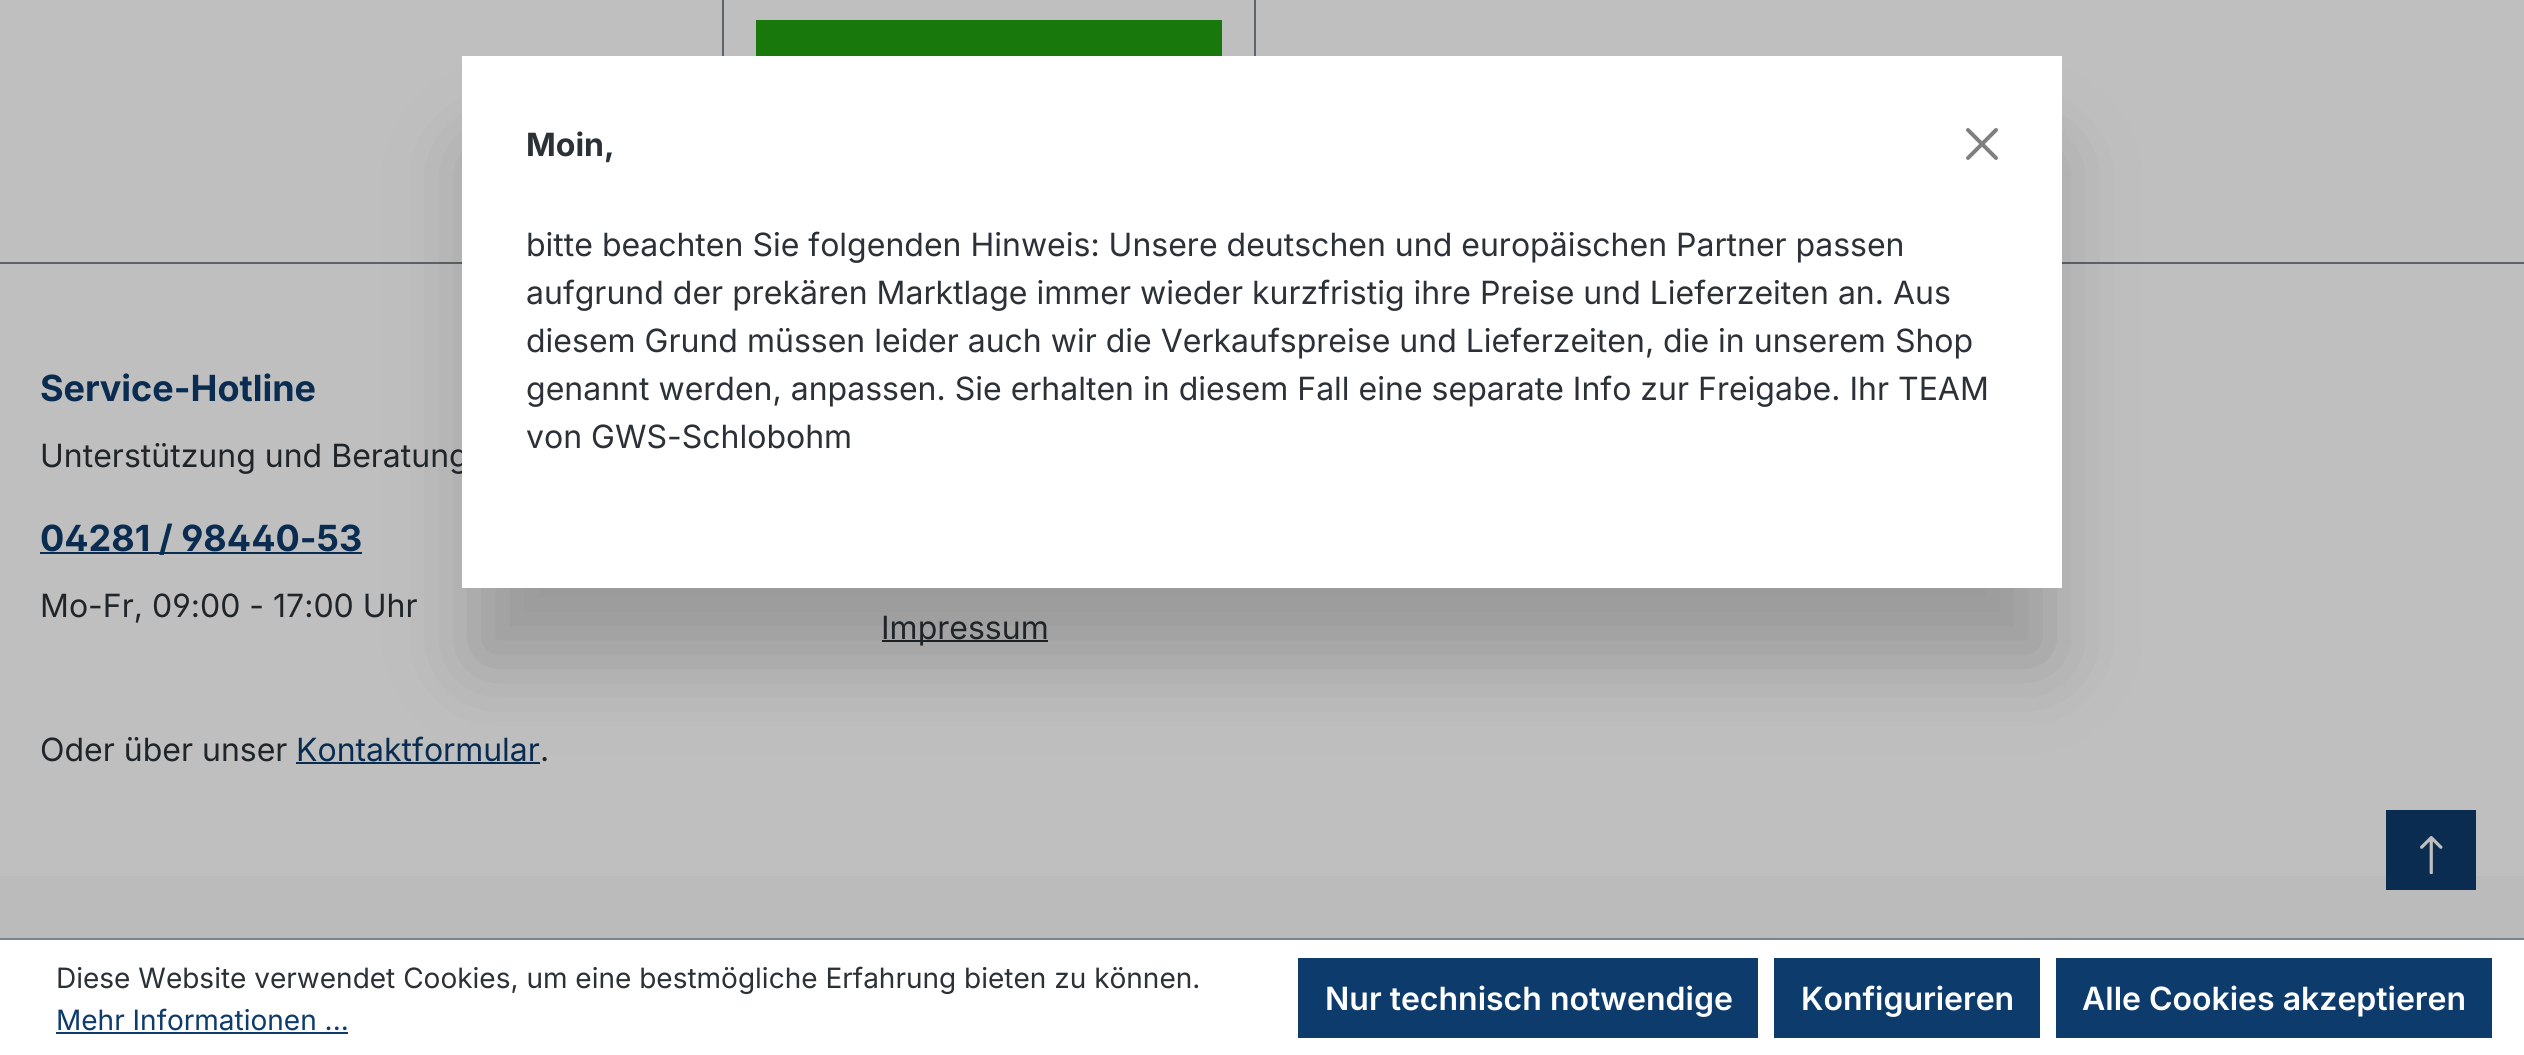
#include <cairo.h>
#include <math.h>
#include <stddef.h>

static cairo_t *ctx;

static void use_color(int r, int g, int b) {
    cairo_set_source_rgb(ctx, r / 255.0, g / 255.0, b / 255.0);
}

static void round_rect(double x, double y, double w, double h, double r) {
    cairo_new_sub_path(ctx);
    cairo_arc(ctx, x + w - r, y + h - r, r, 0, M_PI / 2);
    cairo_arc(ctx, x + r, y + h - r, r, M_PI / 2, M_PI);
    cairo_arc(ctx, x + r, y + r, r, M_PI, 1.5 * M_PI);
    cairo_arc(ctx, x + w - r, y + r, r, 1.5 * M_PI, 2 * M_PI);
    cairo_close_path(ctx);
}

static void shadow(double x, double y, double w, double h, double r, double blur, double alpha) {
    cairo_push_group_with_content(ctx, CAIRO_CONTENT_ALPHA);
    cairo_set_operator(ctx, CAIRO_OPERATOR_SOURCE);
    for (int i = 15; i >= -15 && fmin(w, h) + blur * i / 3 > 0; i -= 2) {
        double e = blur * i / 6;
        cairo_set_source_rgba(ctx, 0, 0, 0, alpha * erfc((i - 1) / 8.5) / 2);
        round_rect(x - e, y - e, w + 2 * e, h + 2 * e, fmax(0, fmin(r + e + blur * .6, fmin(w, h) / 2 + e)));
        cairo_fill(ctx);
    }
    cairo_pattern_t *soft = cairo_pop_group(ctx);
    cairo_mask(ctx, soft);
    cairo_pattern_destroy(soft);
}

static void picture(const char *path, double x, double y, double w, double h) {
    cairo_surface_t *image = cairo_image_surface_create_from_png(path);
    cairo_save(ctx);
    cairo_set_source_surface(ctx, image, x, y);
    cairo_rectangle(ctx, x, y, w, h);
    cairo_fill(ctx);
    cairo_restore(ctx);
    cairo_surface_destroy(image);
}

int main(void) {
    cairo_surface_t *surface = cairo_image_surface_create(CAIRO_FORMAT_RGB24, 2524, 1055);
    ctx = cairo_create(surface);
    cairo_font_options_t *options = cairo_font_options_create();
    cairo_font_options_set_hint_metrics(options, CAIRO_HINT_METRICS_OFF);
    cairo_font_options_set_hint_style(options, CAIRO_HINT_STYLE_NONE);
    cairo_set_font_options(ctx, options);
    cairo_set_miter_limit(ctx, 4);
    use_color(191, 191, 191);
    cairo_paint(ctx);
    cairo_rectangle(ctx, 723, -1, 532, 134);
    use_color(91, 99, 108);
    cairo_stroke(ctx);
    use_color(25, 120, 11);
    cairo_rectangle(ctx, 756, 20, 466, 36);
    cairo_fill(ctx);
    use_color(91, 99, 108);
    cairo_rectangle(ctx, 0, 262, 2524, 2);
    cairo_fill(ctx);
    use_color(10, 44, 81);
    cairo_rectangle(ctx, 40, 552, 322, 2);
    cairo_fill(ctx);
    cairo_rectangle(ctx, 296, 762, 244, 2);
    cairo_fill(ctx);
    use_color(32, 37, 41);
    cairo_rectangle(ctx, 882, 640, 166, 2);
    cairo_fill(ctx);
    use_color(0, 0, 0);
    shadow(474, 154, 1576, 508, 0, 43, 0.2);
    cairo_select_font_face(ctx, "Inter", CAIRO_FONT_SLANT_NORMAL, CAIRO_FONT_WEIGHT_NORMAL);
    cairo_set_font_size(ctx, 32);
    use_color(32, 37, 41);
    cairo_move_to(ctx, 40, 467);
    cairo_show_text(ctx, "Unterstützung und Beratung");
    use_color(255, 255, 255);
    cairo_rectangle(ctx, 462, 56, 1600, 532);
    cairo_fill(ctx);
    cairo_select_font_face(ctx, "Inter", CAIRO_FONT_SLANT_NORMAL, CAIRO_FONT_WEIGHT_BOLD);
    use_color(43, 49, 54);
    cairo_move_to(ctx, 526, 156);
    cairo_show_text(ctx, "Moin,");
    picture("img1.png", 1966, 128, 32, 32);
    cairo_select_font_face(ctx, "Inter", CAIRO_FONT_SLANT_NORMAL, CAIRO_FONT_WEIGHT_NORMAL);
    cairo_move_to(ctx, 526, 256);
    cairo_show_text(ctx, "bitte beachten Sie folgenden Hinweis: Unsere deutschen und europäischen Partner passen");
    cairo_move_to(ctx, 526, 304);
    cairo_show_text(ctx, "aufgrund der prekären Marktlage immer wieder kurzfristig ihre Preise und Lieferzeiten an. Aus");
    cairo_move_to(ctx, 526, 352);
    cairo_show_text(ctx, "diesem Grund müssen leider auch wir die Verkaufspreise und Lieferzeiten, die in unserem Shop");
    cairo_move_to(ctx, 526, 400);
    cairo_show_text(ctx, "genannt werden, anpassen. Sie erhalten in diesem Fall eine separate Info zur Freigabe. Ihr TEAM");
    cairo_move_to(ctx, 526, 448);
    cairo_show_text(ctx, "von GWS-Schlobohm");
    cairo_select_font_face(ctx, "Inter", CAIRO_FONT_SLANT_NORMAL, CAIRO_FONT_WEIGHT_BOLD);
    cairo_set_font_size(ctx, 36);
    use_color(10, 44, 81);
    cairo_move_to(ctx, 40, 401);
    cairo_show_text(ctx, "Service-Hotline");
    cairo_select_font_face(ctx, "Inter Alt", CAIRO_FONT_SLANT_NORMAL, CAIRO_FONT_WEIGHT_BOLD);
    cairo_move_to(ctx, 40, 551);
    cairo_show_text(ctx, "04281 / 98440-53");
    cairo_select_font_face(ctx, "Inter Alt", CAIRO_FONT_SLANT_NORMAL, CAIRO_FONT_WEIGHT_NORMAL);
    cairo_set_font_size(ctx, 32);
    use_color(32, 37, 41);
    cairo_move_to(ctx, 40, 617);
    cairo_show_text(ctx, "Mo-Fr, 09:00 - 17:00 Uhr");
    cairo_select_font_face(ctx, "Inter", CAIRO_FONT_SLANT_NORMAL, CAIRO_FONT_WEIGHT_NORMAL);
    cairo_move_to(ctx, 40, 761);
    cairo_show_text(ctx, "Oder über unser");
    use_color(10, 44, 81);
    cairo_move_to(ctx, 296, 761);
    cairo_show_text(ctx, "Kontaktformular");
    use_color(32, 37, 41);
    cairo_move_to(ctx, 540, 761);
    cairo_show_text(ctx, ".");
    cairo_move_to(ctx, 881, 639);
    cairo_show_text(ctx, "Impressum");
    use_color(187, 187, 187);
    cairo_rectangle(ctx, 0, 876, 2524, 62);
    cairo_fill(ctx);
    use_color(10, 44, 81);
    cairo_rectangle(ctx, 2386, 810, 90, 80);
    cairo_fill(ctx);
    picture("img2.png", 2420, 836, 23, 38);
    use_color(255, 255, 255);
    cairo_rectangle(ctx, 0, 940, 2524, 115);
    cairo_fill(ctx);
    use_color(121, 132, 144);
    cairo_rectangle(ctx, 0, 938, 2524, 2);
    cairo_fill(ctx);
    cairo_set_font_size(ctx, 28);
    use_color(43, 49, 54);
    cairo_move_to(ctx, 56, 988);
    cairo_show_text(ctx, "Diese Website verwendet Cookies, um eine bestmögliche Erfahrung bieten zu können.");
    use_color(13, 59, 108);
    cairo_move_to(ctx, 56, 1030);
    cairo_show_text(ctx, "Mehr Informationen ...");
    cairo_rectangle(ctx, 56, 1032, 292, 2);
    cairo_fill(ctx);
    cairo_rectangle(ctx, 1298, 958, 460, 80);
    cairo_fill(ctx);
    cairo_select_font_face(ctx, "Inter SemiBold", CAIRO_FONT_SLANT_NORMAL, CAIRO_FONT_WEIGHT_NORMAL);
    cairo_set_font_size(ctx, 32);
    use_color(255, 255, 255);
    cairo_move_to(ctx, 1325, 1010);
    cairo_show_text(ctx, "Nur technisch notwendige");
    use_color(13, 59, 108);
    cairo_rectangle(ctx, 1774, 958, 266, 80);
    cairo_fill(ctx);
    use_color(255, 255, 255);
    cairo_move_to(ctx, 1801, 1010);
    cairo_show_text(ctx, "Konfigurieren");
    use_color(13, 59, 108);
    cairo_rectangle(ctx, 2056, 958, 436, 80);
    cairo_fill(ctx);
    use_color(255, 255, 255);
    cairo_move_to(ctx, 2082, 1010);
    cairo_show_text(ctx, "Alle Cookies akzeptieren");
    cairo_surface_write_to_png(surface, "result.png");
    cairo_font_options_destroy(options);
    cairo_destroy(ctx);
    cairo_surface_destroy(surface);
    return 0;
}
